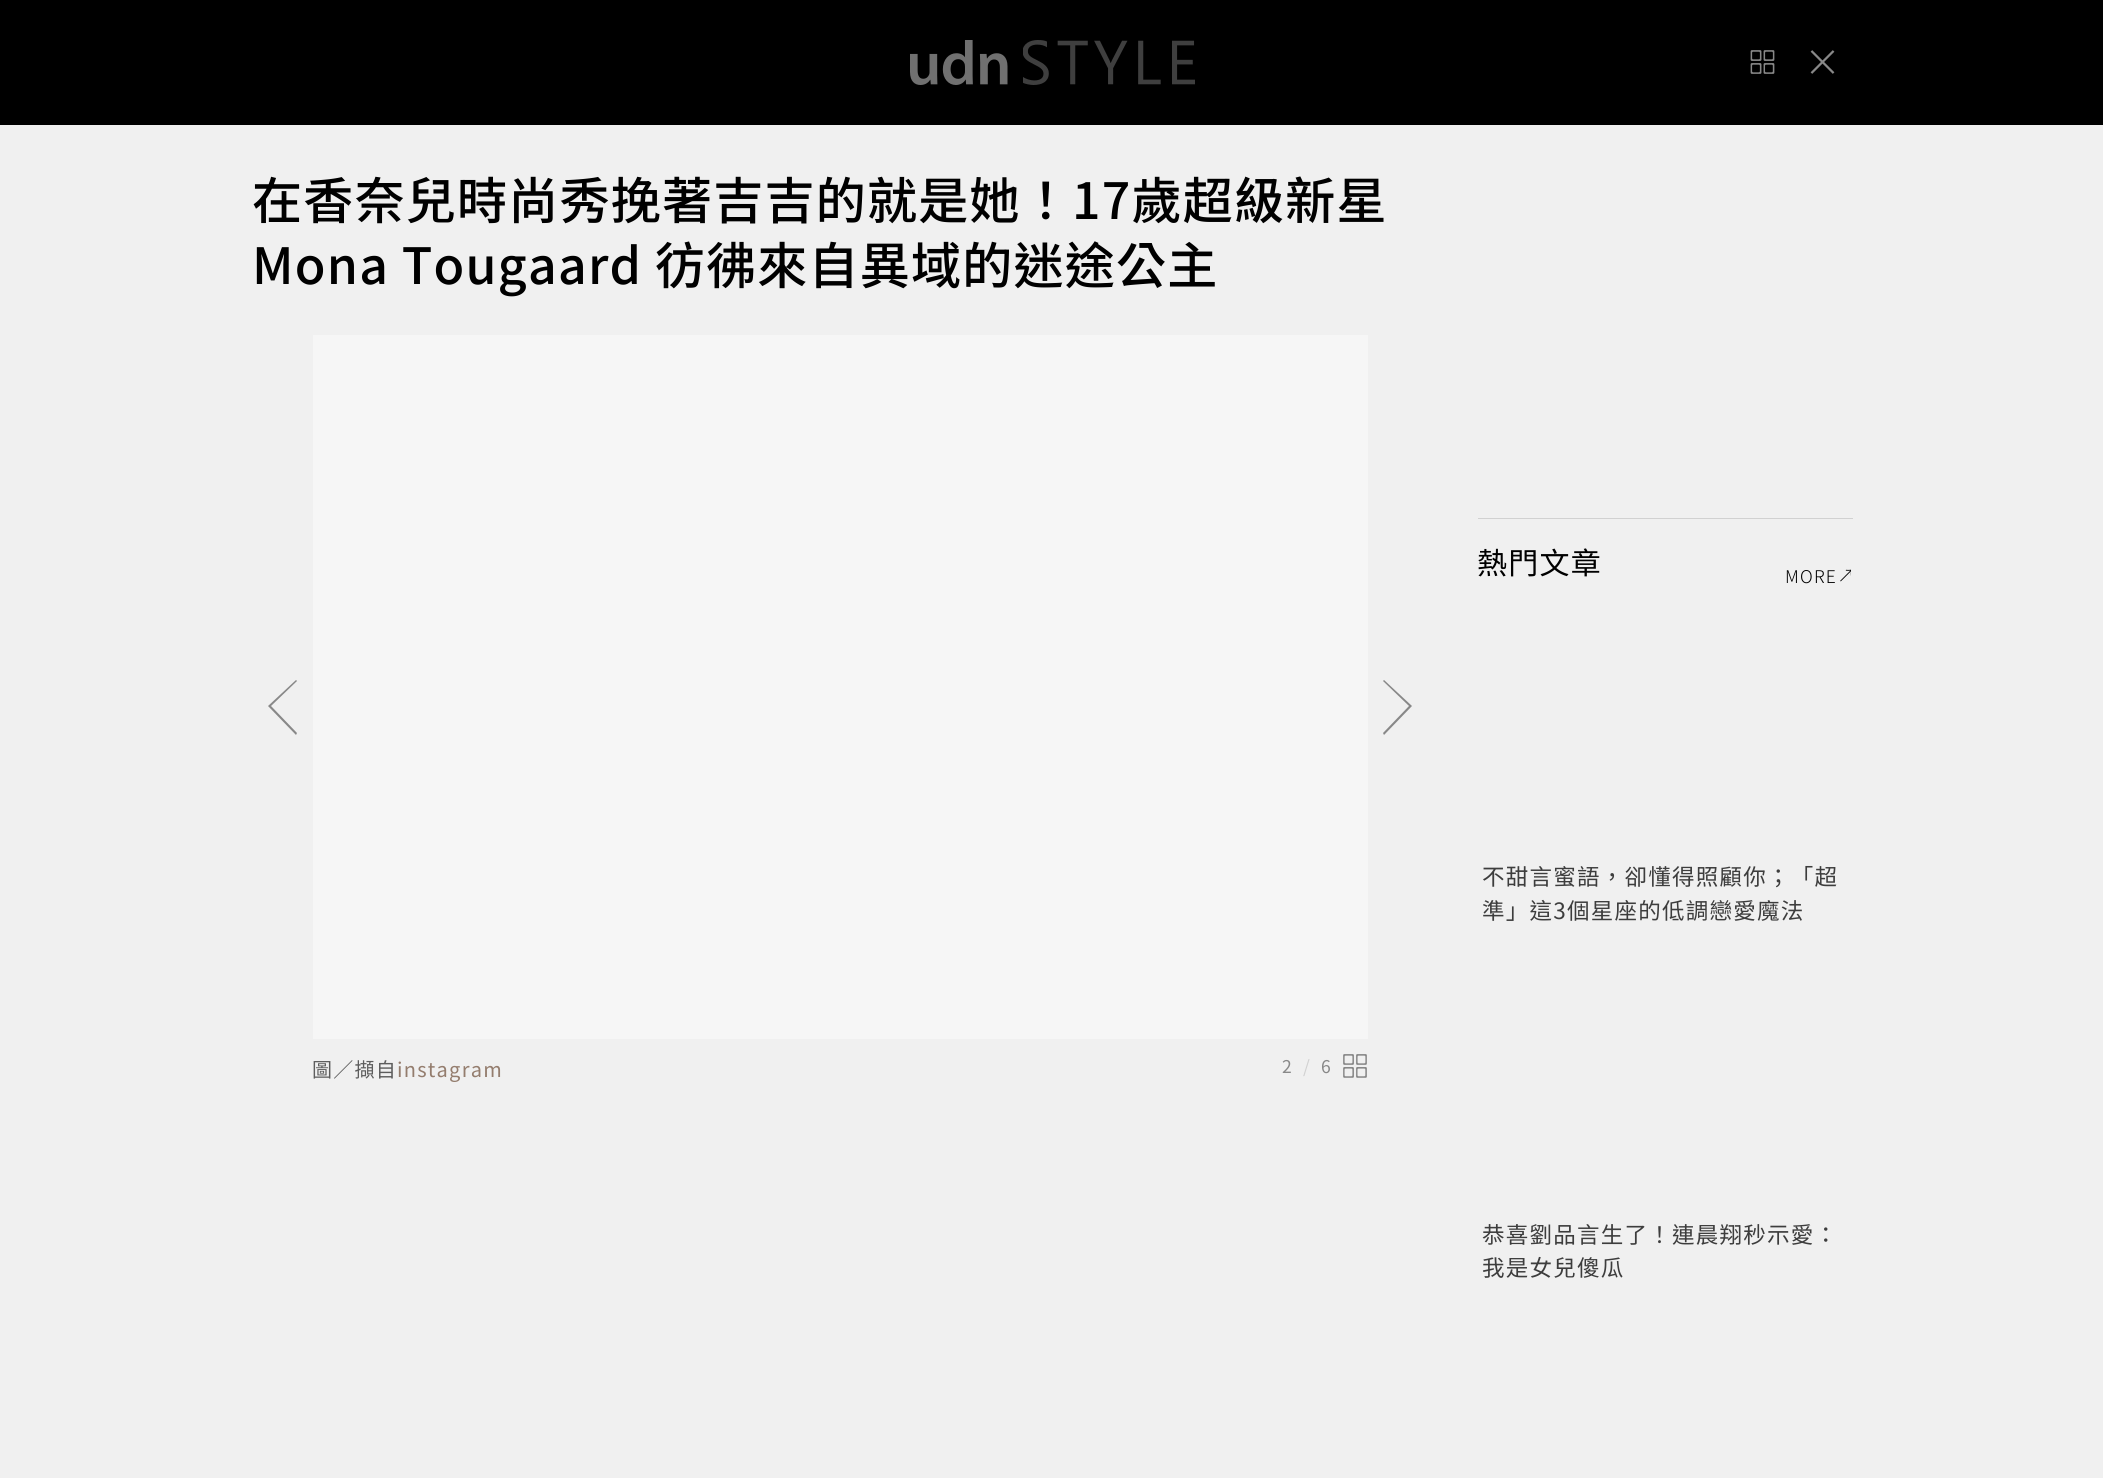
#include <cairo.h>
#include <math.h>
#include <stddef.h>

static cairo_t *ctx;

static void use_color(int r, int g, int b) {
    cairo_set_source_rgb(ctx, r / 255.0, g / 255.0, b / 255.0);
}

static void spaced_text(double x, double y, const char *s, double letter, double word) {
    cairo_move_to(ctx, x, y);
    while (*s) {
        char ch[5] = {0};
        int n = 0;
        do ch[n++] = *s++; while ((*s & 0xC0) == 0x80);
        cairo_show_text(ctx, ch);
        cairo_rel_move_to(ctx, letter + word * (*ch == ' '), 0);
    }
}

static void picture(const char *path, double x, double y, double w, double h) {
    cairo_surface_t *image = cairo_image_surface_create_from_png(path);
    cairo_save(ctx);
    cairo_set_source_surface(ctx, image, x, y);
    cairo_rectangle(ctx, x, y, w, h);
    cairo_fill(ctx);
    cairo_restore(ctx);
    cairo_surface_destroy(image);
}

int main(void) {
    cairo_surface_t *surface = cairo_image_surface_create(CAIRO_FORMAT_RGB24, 2103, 1478);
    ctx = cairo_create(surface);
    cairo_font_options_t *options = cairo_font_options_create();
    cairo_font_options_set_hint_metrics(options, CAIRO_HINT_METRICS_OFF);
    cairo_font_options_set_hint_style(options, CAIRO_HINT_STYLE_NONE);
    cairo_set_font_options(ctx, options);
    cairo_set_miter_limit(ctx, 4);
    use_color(240, 240, 240);
    cairo_paint(ctx);
    use_color(0, 0, 0);
    cairo_rectangle(ctx, 0, 0, 2103, 125);
    cairo_fill(ctx);
    picture("img1.png", 910, 40, 98, 45);
    picture("img2.png", 1023, 40, 172, 45);
    picture("img3.png", 1750, 50, 25, 24);
    picture("img4.png", 1810, 50, 25, 24);
    cairo_select_font_face(ctx, "Noto Sans TC Medium", CAIRO_FONT_SLANT_NORMAL, CAIRO_FONT_WEIGHT_NORMAL);
    cairo_set_font_size(ctx, 50);
    spaced_text(252, 219, "在香奈兒時尚秀挽著吉吉的就是她！17歲超級新星", 1.25, 0);
    spaced_text(252, 284, "Mona Tougaard 彷彿來自異域的迷途公主", 1.25, 0);
    use_color(136, 136, 136);
    cairo_new_path(ctx);
    cairo_move_to(ctx, 296, 735);
    cairo_line_to(ctx, 268, 706);
    cairo_line_to(ctx, 296, 680);
    cairo_line_to(ctx, 297, 681);
    cairo_line_to(ctx, 271, 706);
    cairo_line_to(ctx, 297, 733);
    cairo_close_path(ctx);
    cairo_fill(ctx);
    cairo_new_path(ctx);
    cairo_move_to(ctx, 1384, 735);
    cairo_line_to(ctx, 1383, 733);
    cairo_line_to(ctx, 1409, 706);
    cairo_line_to(ctx, 1383, 681);
    cairo_line_to(ctx, 1384, 680);
    cairo_line_to(ctx, 1412, 706);
    cairo_close_path(ctx);
    cairo_fill(ctx);
    use_color(246, 246, 246);
    cairo_rectangle(ctx, 313, 335, 1055, 704);
    cairo_fill(ctx);
    cairo_select_font_face(ctx, "Noto Sans TC", CAIRO_FONT_SLANT_NORMAL, CAIRO_FONT_WEIGHT_NORMAL);
    cairo_set_font_size(ctx, 20);
    use_color(93, 93, 93);
    spaced_text(312, 1077, "圖／擷自", 1.25, 0);
    use_color(148, 125, 110);
    spaced_text(397, 1077, "instagram", 1.25, 0);
    cairo_set_font_size(ctx, 17.5);
    use_color(136, 136, 136);
    spaced_text(1282, 1073, "2", 1.25, 0);
    use_color(209, 209, 209);
    spaced_text(1303, 1073, "/", 1.25, 0);
    use_color(136, 136, 136);
    spaced_text(1321, 1073, "6", 1.25, 0);
    picture("img5.png", 1343, 1054, 24, 24);
    use_color(209, 209, 209);
    cairo_rectangle(ctx, 1478, 518, 375, 1);
    cairo_fill(ctx);
    cairo_set_font_size(ctx, 30);
    use_color(0, 0, 0);
    spaced_text(1477, 574, "熱門文章", 1.25, 0);
    cairo_select_font_face(ctx, "Noto Sans TC Light", CAIRO_FONT_SLANT_NORMAL, CAIRO_FONT_WEIGHT_NORMAL);
    cairo_set_font_size(ctx, 17.5);
    spaced_text(1785, 583, "MORE", 1.25, 0);
    picture("img6.png", 1840, 569, 11, 13);
    cairo_select_font_face(ctx, "Noto Sans TC", CAIRO_FONT_SLANT_NORMAL, CAIRO_FONT_WEIGHT_NORMAL);
    cairo_set_font_size(ctx, 22.5);
    use_color(61, 61, 61);
    spaced_text(1482, 885, "不甜言蜜語，卻懂得照顧你；「超", 1.25, 0);
    spaced_text(1482, 919, "準」這3個星座的低調戀愛魔法", 1.25, 0);
    spaced_text(1482, 1243, "恭喜劉品言生了！連晨翔秒示愛：", 1.25, 0);
    spaced_text(1482, 1276, "我是女兒傻瓜", 1.25, 0);
    cairo_surface_write_to_png(surface, "result.png");
    cairo_font_options_destroy(options);
    cairo_destroy(ctx);
    cairo_surface_destroy(surface);
    return 0;
}
